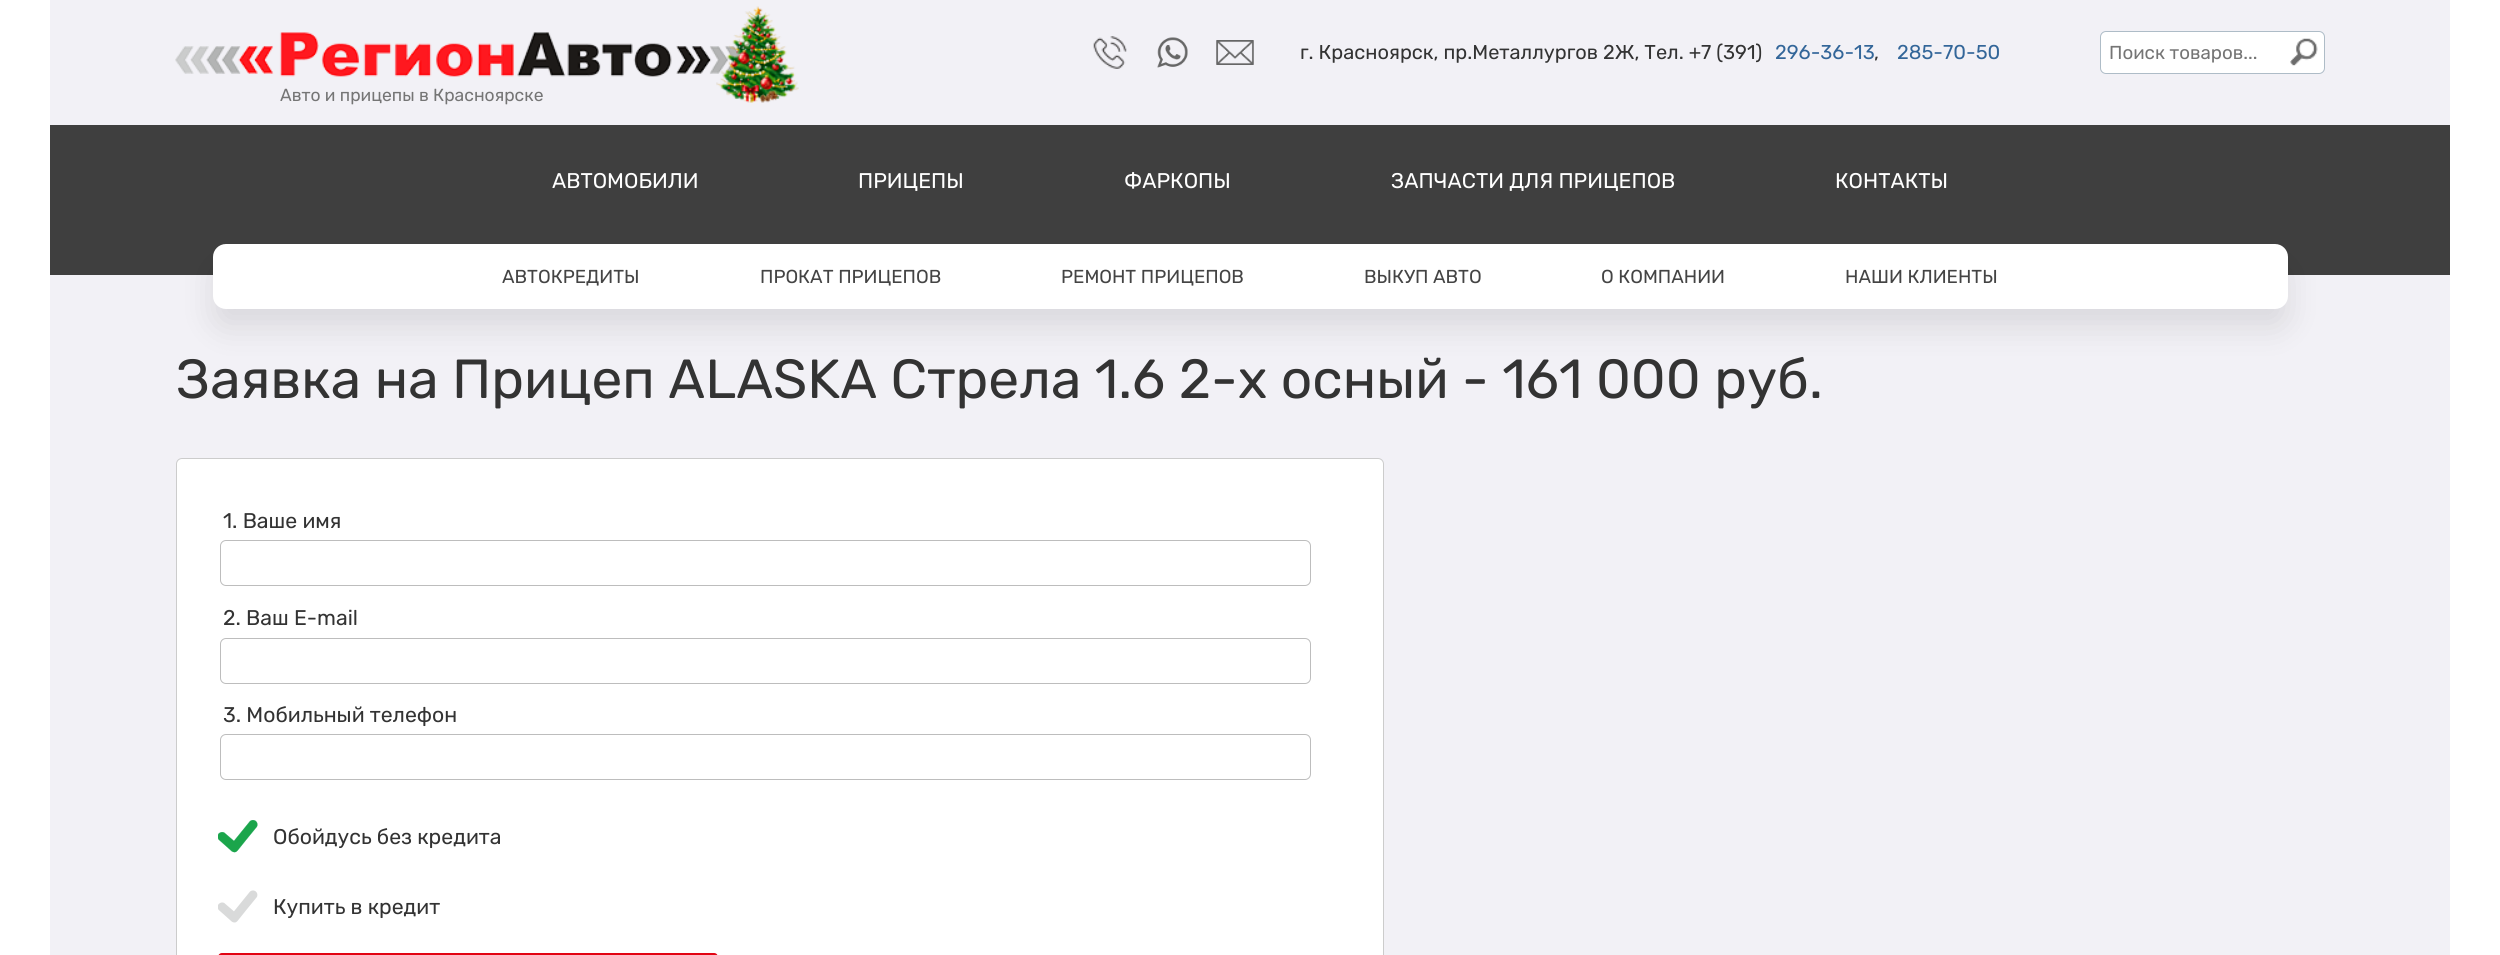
#include <cairo.h>
#include <math.h>
#include <stddef.h>

static cairo_t *ctx;

static void use_color(int r, int g, int b) {
    cairo_set_source_rgb(ctx, r / 255.0, g / 255.0, b / 255.0);
}

static void round_rect(double x, double y, double w, double h, double r) {
    cairo_new_sub_path(ctx);
    cairo_arc(ctx, x + w - r, y + h - r, r, 0, M_PI / 2);
    cairo_arc(ctx, x + r, y + h - r, r, M_PI / 2, M_PI);
    cairo_arc(ctx, x + r, y + r, r, M_PI, 1.5 * M_PI);
    cairo_arc(ctx, x + w - r, y + r, r, 1.5 * M_PI, 2 * M_PI);
    cairo_close_path(ctx);
}

static void shadow(double x, double y, double w, double h, double r, double blur, double alpha) {
    cairo_push_group_with_content(ctx, CAIRO_CONTENT_ALPHA);
    cairo_set_operator(ctx, CAIRO_OPERATOR_SOURCE);
    for (int i = 15; i >= -15 && fmin(w, h) + blur * i / 3 > 0; i -= 2) {
        double e = blur * i / 6;
        cairo_set_source_rgba(ctx, 0, 0, 0, alpha * erfc((i - 1) / 8.5) / 2);
        round_rect(x - e, y - e, w + 2 * e, h + 2 * e, fmax(0, fmin(r + e + blur * .6, fmin(w, h) / 2 + e)));
        cairo_fill(ctx);
    }
    cairo_pattern_t *soft = cairo_pop_group(ctx);
    cairo_mask(ctx, soft);
    cairo_pattern_destroy(soft);
}

static void picture(const char *path, double x, double y, double w, double h) {
    cairo_surface_t *image = cairo_image_surface_create_from_png(path);
    cairo_save(ctx);
    cairo_set_source_surface(ctx, image, x, y);
    cairo_rectangle(ctx, x, y, w, h);
    cairo_fill(ctx);
    cairo_restore(ctx);
    cairo_surface_destroy(image);
}

int main(void) {
    cairo_surface_t *surface = cairo_image_surface_create(CAIRO_FORMAT_RGB24, 2500, 955);
    ctx = cairo_create(surface);
    cairo_font_options_t *options = cairo_font_options_create();
    cairo_font_options_set_hint_metrics(options, CAIRO_HINT_METRICS_OFF);
    cairo_font_options_set_hint_style(options, CAIRO_HINT_STYLE_NONE);
    cairo_set_font_options(ctx, options);
    cairo_set_miter_limit(ctx, 4);
    use_color(255, 255, 255);
    cairo_paint(ctx);
    use_color(242, 241, 246);
    cairo_rectangle(ctx, 50, 0, 2400, 955);
    cairo_fill(ctx);
    picture("img1.png", 1093, 36, 34, 33);
    picture("img2.png", 1157, 37, 31, 31);
    picture("img3.png", 1216, 40, 38, 25);
    cairo_select_font_face(ctx, "Rubik", CAIRO_FONT_SLANT_NORMAL, CAIRO_FONT_WEIGHT_NORMAL);
    cairo_set_font_size(ctx, 20);
    use_color(51, 51, 51);
    cairo_move_to(ctx, 1300, 59);
    cairo_show_text(ctx, "г. Красноярск, пр.Металлургов 2Ж, Тел. +7 (391)");
    use_color(51, 102, 153);
    cairo_move_to(ctx, 1775, 59);
    cairo_show_text(ctx, "296-36-13");
    use_color(51, 51, 51);
    cairo_move_to(ctx, 1874, 59);
    cairo_show_text(ctx, ",");
    use_color(51, 102, 153);
    cairo_move_to(ctx, 1897, 59);
    cairo_show_text(ctx, "285-70-50");
    use_color(255, 255, 255);
    round_rect(2100.5, 31.5, 224, 42, 5.5);
    cairo_fill_preserve(ctx);
    use_color(174, 188, 199);
    cairo_set_line_width(ctx, 1);
    cairo_stroke(ctx);
    cairo_set_font_size(ctx, 18.75);
    use_color(117, 117, 117);
    cairo_move_to(ctx, 2109, 59);
    cairo_show_text(ctx, "Поиск товаров...");
    picture("img4.png", 2290, 38, 28, 28);
    picture("img5.png", 175, 6, 624, 97);
    cairo_set_font_size(ctx, 17.5);
    cairo_move_to(ctx, 280, 101);
    cairo_show_text(ctx, "Авто и прицепы в Красноярске");
    use_color(63, 63, 63);
    cairo_rectangle(ctx, 50, 125, 2400, 150);
    cairo_fill(ctx);
    cairo_set_font_size(ctx, 21.25);
    use_color(255, 255, 255);
    cairo_move_to(ctx, 552, 188);
    cairo_show_text(ctx, "АВТОМОБИЛИ");
    cairo_move_to(ctx, 858, 188);
    cairo_show_text(ctx, "ПРИЦЕПЫ");
    cairo_move_to(ctx, 1124, 188);
    cairo_show_text(ctx, "ФАРКОПЫ");
    cairo_move_to(ctx, 1391, 188);
    cairo_show_text(ctx, "ЗАПЧАСТИ ДЛЯ ПРИЦЕПОВ");
    cairo_move_to(ctx, 1835, 188);
    cairo_show_text(ctx, "КОНТАКТЫ");
    use_color(0, 0, 0);
    shadow(213, 263, 2075, 65, 13, 15.5, 0.1);
    use_color(255, 255, 255);
    round_rect(213, 244, 2075, 65, 13);
    cairo_fill(ctx);
    cairo_set_font_size(ctx, 18.75);
    use_color(68, 68, 68);
    cairo_move_to(ctx, 502, 283);
    cairo_show_text(ctx, "АВТОКРЕДИТЫ");
    cairo_move_to(ctx, 760, 283);
    cairo_show_text(ctx, "ПРОКАТ ПРИЦЕПОВ");
    cairo_move_to(ctx, 1061, 283);
    cairo_show_text(ctx, "РЕМОНТ ПРИЦЕПОВ");
    cairo_move_to(ctx, 1364, 283);
    cairo_show_text(ctx, "ВЫКУП АВТО");
    cairo_move_to(ctx, 1601, 283);
    cairo_show_text(ctx, "О КОМПАНИИ");
    cairo_move_to(ctx, 1845, 283);
    cairo_show_text(ctx, "НАШИ КЛИЕНТЫ");
    cairo_set_font_size(ctx, 55);
    use_color(51, 51, 51);
    cairo_move_to(ctx, 176, 398);
    cairo_show_text(ctx, "Заявка на Прицеп ALASKA Стрела 1.6 2-х осный - 161 000 руб.");
    use_color(255, 255, 255);
    round_rect(176.5, 458.5, 1207, 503, 5.5);
    cairo_fill_preserve(ctx);
    use_color(204, 204, 204);
    cairo_stroke(ctx);
    cairo_set_font_size(ctx, 21.25);
    use_color(51, 51, 51);
    cairo_move_to(ctx, 223, 528);
    cairo_show_text(ctx, "1. Ваше имя");
    round_rect(220.5, 540.5, 1090, 45, 5.5);
    use_color(189, 189, 189);
    cairo_stroke(ctx);
    use_color(51, 51, 51);
    cairo_move_to(ctx, 223, 625);
    cairo_show_text(ctx, "2. Ваш E-mail");
    round_rect(220.5, 638.5, 1090, 45, 5.5);
    use_color(189, 189, 189);
    cairo_stroke(ctx);
    use_color(51, 51, 51);
    cairo_move_to(ctx, 223, 722);
    cairo_show_text(ctx, "3. Мобильный телефон");
    round_rect(220.5, 734.5, 1090, 45, 5.5);
    use_color(189, 189, 189);
    cairo_stroke(ctx);
    picture("img6.png", 218, 820, 40, 33);
    use_color(51, 51, 51);
    cairo_move_to(ctx, 273, 844);
    cairo_show_text(ctx, "Обойдусь без кредита");
    picture("img7.png", 218, 890, 40, 33);
    cairo_move_to(ctx, 273, 914);
    cairo_show_text(ctx, "Купить в кредит");
    use_color(226, 4, 19);
    round_rect(218, 953, 500, 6, 4);
    cairo_fill(ctx);
    cairo_surface_write_to_png(surface, "result.png");
    cairo_font_options_destroy(options);
    cairo_destroy(ctx);
    cairo_surface_destroy(surface);
    return 0;
}
